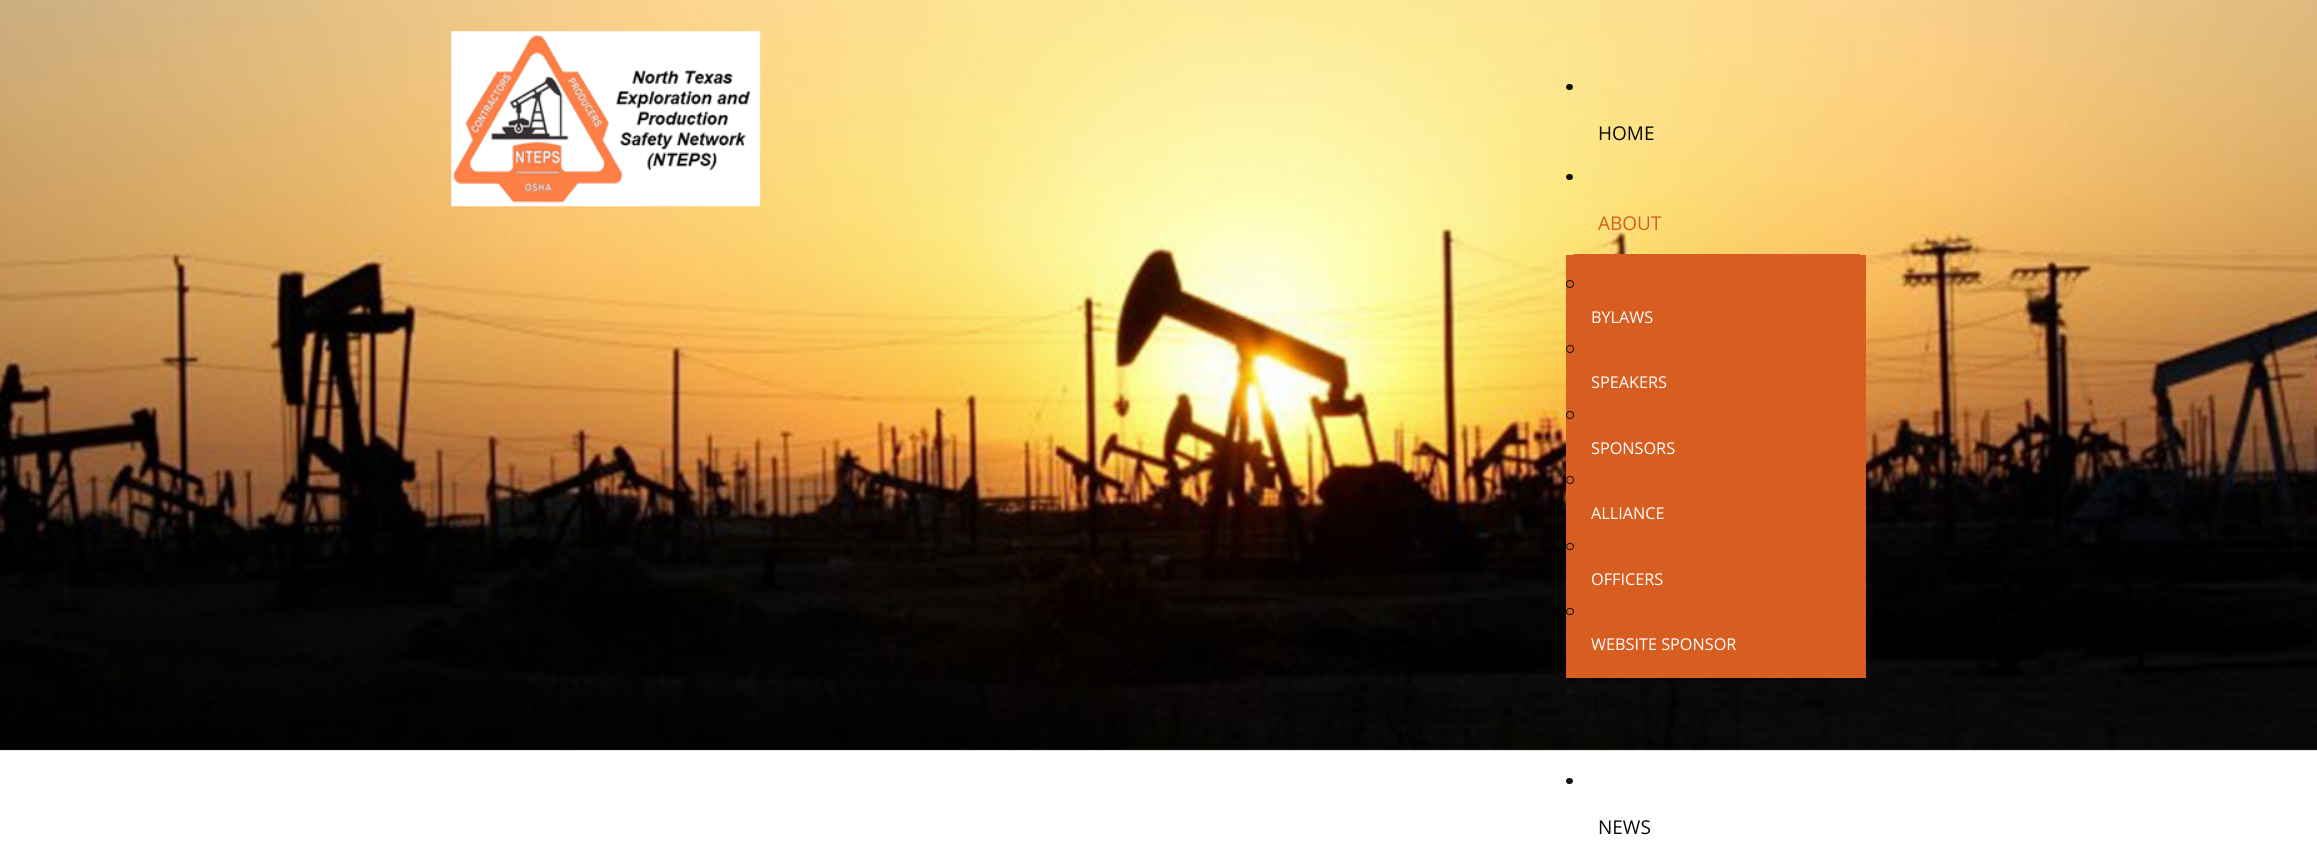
#include <cairo.h>
#include <math.h>
#include <stddef.h>

static cairo_t *ctx;

static void use_color(int r, int g, int b) {
    cairo_set_source_rgb(ctx, r / 255.0, g / 255.0, b / 255.0);
}

static void round_rect(double x, double y, double w, double h, double r) {
    cairo_new_sub_path(ctx);
    cairo_arc(ctx, x + w - r, y + h - r, r, 0, M_PI / 2);
    cairo_arc(ctx, x + r, y + h - r, r, M_PI / 2, M_PI);
    cairo_arc(ctx, x + r, y + r, r, M_PI, 1.5 * M_PI);
    cairo_arc(ctx, x + w - r, y + r, r, 1.5 * M_PI, 2 * M_PI);
    cairo_close_path(ctx);
}

static void picture(const char *path, double x, double y, double w, double h) {
    cairo_surface_t *image = cairo_image_surface_create_from_png(path);
    cairo_save(ctx);
    cairo_set_source_surface(ctx, image, x, y);
    cairo_rectangle(ctx, x, y, w, h);
    cairo_fill(ctx);
    cairo_restore(ctx);
    cairo_surface_destroy(image);
}

int main(void) {
    cairo_surface_t *surface = cairo_image_surface_create(CAIRO_FORMAT_RGB24, 2317, 864);
    ctx = cairo_create(surface);
    cairo_font_options_t *options = cairo_font_options_create();
    cairo_font_options_set_hint_metrics(options, CAIRO_HINT_METRICS_OFF);
    cairo_font_options_set_hint_style(options, CAIRO_HINT_STYLE_NONE);
    cairo_set_font_options(ctx, options);
    cairo_set_miter_limit(ctx, 4);
    use_color(255, 255, 255);
    cairo_paint(ctx);
    picture("img1.png", 0, 0, 2317, 751);
    picture("img2.png", 451, 31, 310, 176);
    use_color(18, 18, 18);
    round_rect(1566, 84, 7, 6, 3);
    cairo_fill(ctx);
    cairo_select_font_face(ctx, "Open Sans", CAIRO_FONT_SLANT_NORMAL, CAIRO_FONT_WEIGHT_NORMAL);
    cairo_set_font_size(ctx, 19);
    use_color(10, 10, 10);
    cairo_move_to(ctx, 1598, 140);
    cairo_show_text(ctx, "HOME");
    use_color(18, 18, 18);
    round_rect(1566, 174, 7, 6, 3);
    cairo_fill(ctx);
    use_color(215, 94, 32);
    cairo_rectangle(ctx, 1573, 254, 287, 1);
    cairo_fill(ctx);
    cairo_move_to(ctx, 1598, 230);
    cairo_show_text(ctx, "ABOUT");
    cairo_rectangle(ctx, 1566, 255, 300, 423);
    cairo_fill(ctx);
    cairo_arc(ctx, 1570, 284, 3.5, 0, 2 * M_PI);
    use_color(18, 18, 18);
    cairo_set_line_width(ctx, 1);
    cairo_stroke(ctx);
    cairo_set_font_size(ctx, 16.25);
    use_color(255, 255, 255);
    cairo_move_to(ctx, 1591, 323);
    cairo_show_text(ctx, "BYLAWS");
    cairo_new_path(ctx);
    cairo_arc(ctx, 1570, 349, 3.5, 0, 2 * M_PI);
    use_color(18, 18, 18);
    cairo_stroke(ctx);
    use_color(255, 255, 255);
    cairo_move_to(ctx, 1591, 388);
    cairo_show_text(ctx, "SPEAKERS");
    cairo_new_path(ctx);
    cairo_arc(ctx, 1570, 415, 3.5, 0, 2 * M_PI);
    use_color(18, 18, 18);
    cairo_stroke(ctx);
    use_color(255, 255, 255);
    cairo_move_to(ctx, 1591, 454);
    cairo_show_text(ctx, "SPONSORS");
    cairo_new_path(ctx);
    cairo_arc(ctx, 1570, 480, 3.5, 0, 2 * M_PI);
    use_color(18, 18, 18);
    cairo_stroke(ctx);
    use_color(255, 255, 255);
    cairo_move_to(ctx, 1591, 519);
    cairo_show_text(ctx, "ALLIANCE");
    round_rect(1566.5, 543.5, 7, 6, 3);
    use_color(18, 18, 18);
    cairo_stroke(ctx);
    use_color(255, 255, 255);
    cairo_move_to(ctx, 1591, 585);
    cairo_show_text(ctx, "OFFICERS");
    round_rect(1566.5, 608.5, 7, 6, 3);
    use_color(18, 18, 18);
    cairo_stroke(ctx);
    use_color(255, 255, 255);
    cairo_move_to(ctx, 1591, 650);
    cairo_show_text(ctx, "WEBSITE SPONSOR");
    use_color(18, 18, 18);
    round_rect(1566, 688, 7, 6, 3);
    cairo_fill(ctx);
    round_rect(1566, 778, 7, 6, 3);
    cairo_fill(ctx);
    cairo_set_font_size(ctx, 19);
    use_color(10, 10, 10);
    cairo_move_to(ctx, 1598, 834);
    cairo_show_text(ctx, "NEWS");
    cairo_surface_write_to_png(surface, "result.png");
    cairo_font_options_destroy(options);
    cairo_destroy(ctx);
    cairo_surface_destroy(surface);
    return 0;
}
